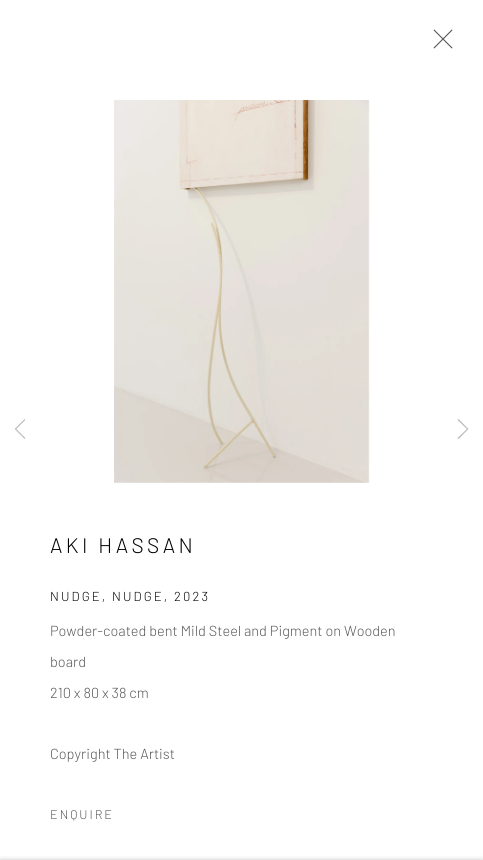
#include <cairo.h>
#include <math.h>
#include <stddef.h>

static cairo_t *ctx;

static void use_color(int r, int g, int b) {
    cairo_set_source_rgb(ctx, r / 255.0, g / 255.0, b / 255.0);
}

static void spaced_text(double x, double y, const char *s, double letter, double word) {
    cairo_move_to(ctx, x, y);
    while (*s) {
        char ch[5] = {0};
        int n = 0;
        do ch[n++] = *s++; while ((*s & 0xC0) == 0x80);
        cairo_show_text(ctx, ch);
        cairo_rel_move_to(ctx, letter + word * (*ch == ' '), 0);
    }
}

static void round_rect(double x, double y, double w, double h, double r) {
    cairo_new_sub_path(ctx);
    cairo_arc(ctx, x + w - r, y + h - r, r, 0, M_PI / 2);
    cairo_arc(ctx, x + r, y + h - r, r, M_PI / 2, M_PI);
    cairo_arc(ctx, x + r, y + r, r, M_PI, 1.5 * M_PI);
    cairo_arc(ctx, x + w - r, y + r, r, 1.5 * M_PI, 2 * M_PI);
    cairo_close_path(ctx);
}

static void shadow(double x, double y, double w, double h, double r, double blur, double alpha) {
    cairo_push_group_with_content(ctx, CAIRO_CONTENT_ALPHA);
    cairo_set_operator(ctx, CAIRO_OPERATOR_SOURCE);
    for (int i = 15; i >= -15 && fmin(w, h) + blur * i / 3 > 0; i -= 2) {
        double e = blur * i / 6;
        cairo_set_source_rgba(ctx, 0, 0, 0, alpha * erfc((i - 1) / 8.5) / 2);
        round_rect(x - e, y - e, w + 2 * e, h + 2 * e, fmax(0, fmin(r + e + blur * .6, fmin(w, h) / 2 + e)));
        cairo_fill(ctx);
    }
    cairo_pattern_t *soft = cairo_pop_group(ctx);
    cairo_mask(ctx, soft);
    cairo_pattern_destroy(soft);
}

static void picture(const char *path, double x, double y, double w, double h) {
    cairo_surface_t *image = cairo_image_surface_create_from_png(path);
    cairo_save(ctx);
    cairo_set_source_surface(ctx, image, x, y);
    cairo_rectangle(ctx, x, y, w, h);
    cairo_fill(ctx);
    cairo_restore(ctx);
    cairo_surface_destroy(image);
}

int main(void) {
    cairo_surface_t *surface = cairo_image_surface_create(CAIRO_FORMAT_RGB24, 483, 860);
    ctx = cairo_create(surface);
    cairo_font_options_t *options = cairo_font_options_create();
    cairo_font_options_set_hint_metrics(options, CAIRO_HINT_METRICS_OFF);
    cairo_font_options_set_hint_style(options, CAIRO_HINT_STYLE_NONE);
    cairo_set_font_options(ctx, options);
    cairo_set_miter_limit(ctx, 4);
    use_color(255, 255, 255);
    cairo_paint(ctx);
    picture("img1.png", 433, 29, 20, 20);
    picture("img2.png", 15, 419, 11, 20);
    use_color(185, 185, 185);
    cairo_new_path(ctx);
    cairo_move_to(ctx, 468.5, 429);
    cairo_line_to(ctx, 458.5, 419);
    cairo_line_to(ctx, 457.5, 420);
    cairo_line_to(ctx, 467, 429);
    cairo_line_to(ctx, 457.5, 438);
    cairo_line_to(ctx, 458.5, 439);
    cairo_close_path(ctx);
    cairo_fill(ctx);
    picture("img3.png", 114, 100, 256, 383);
    cairo_select_font_face(ctx, "Barlow Light", CAIRO_FONT_SLANT_NORMAL, CAIRO_FONT_WEIGHT_NORMAL);
    cairo_set_font_size(ctx, 21);
    use_color(1, 1, 1);
    spaced_text(50, 553, "AKI HASSAN", 3.4, 0);
    cairo_set_font_size(ctx, 13);
    spaced_text(50, 601, "NUDGE, NUDGE, 2023", 2.1, 0);
    cairo_set_font_size(ctx, 14.5);
    use_color(88, 88, 88);
    cairo_move_to(ctx, 50, 636);
    cairo_show_text(ctx, "Powder-coated bent Mild Steel and Pigment on Wooden");
    cairo_move_to(ctx, 50, 667);
    cairo_show_text(ctx, "board");
    cairo_move_to(ctx, 50, 698);
    cairo_show_text(ctx, "210 x 80 x 38 cm");
    cairo_move_to(ctx, 50, 759);
    cairo_show_text(ctx, "Copyright The Artist");
    cairo_set_font_size(ctx, 12.5);
    spaced_text(50, 819, "ENQUIRE", 2, 0);
    use_color(0, 0, 0);
    shadow(0, 860, 483, 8, 0, 2.5, 0.23);
    cairo_surface_write_to_png(surface, "result.png");
    cairo_font_options_destroy(options);
    cairo_destroy(ctx);
    cairo_surface_destroy(surface);
    return 0;
}
